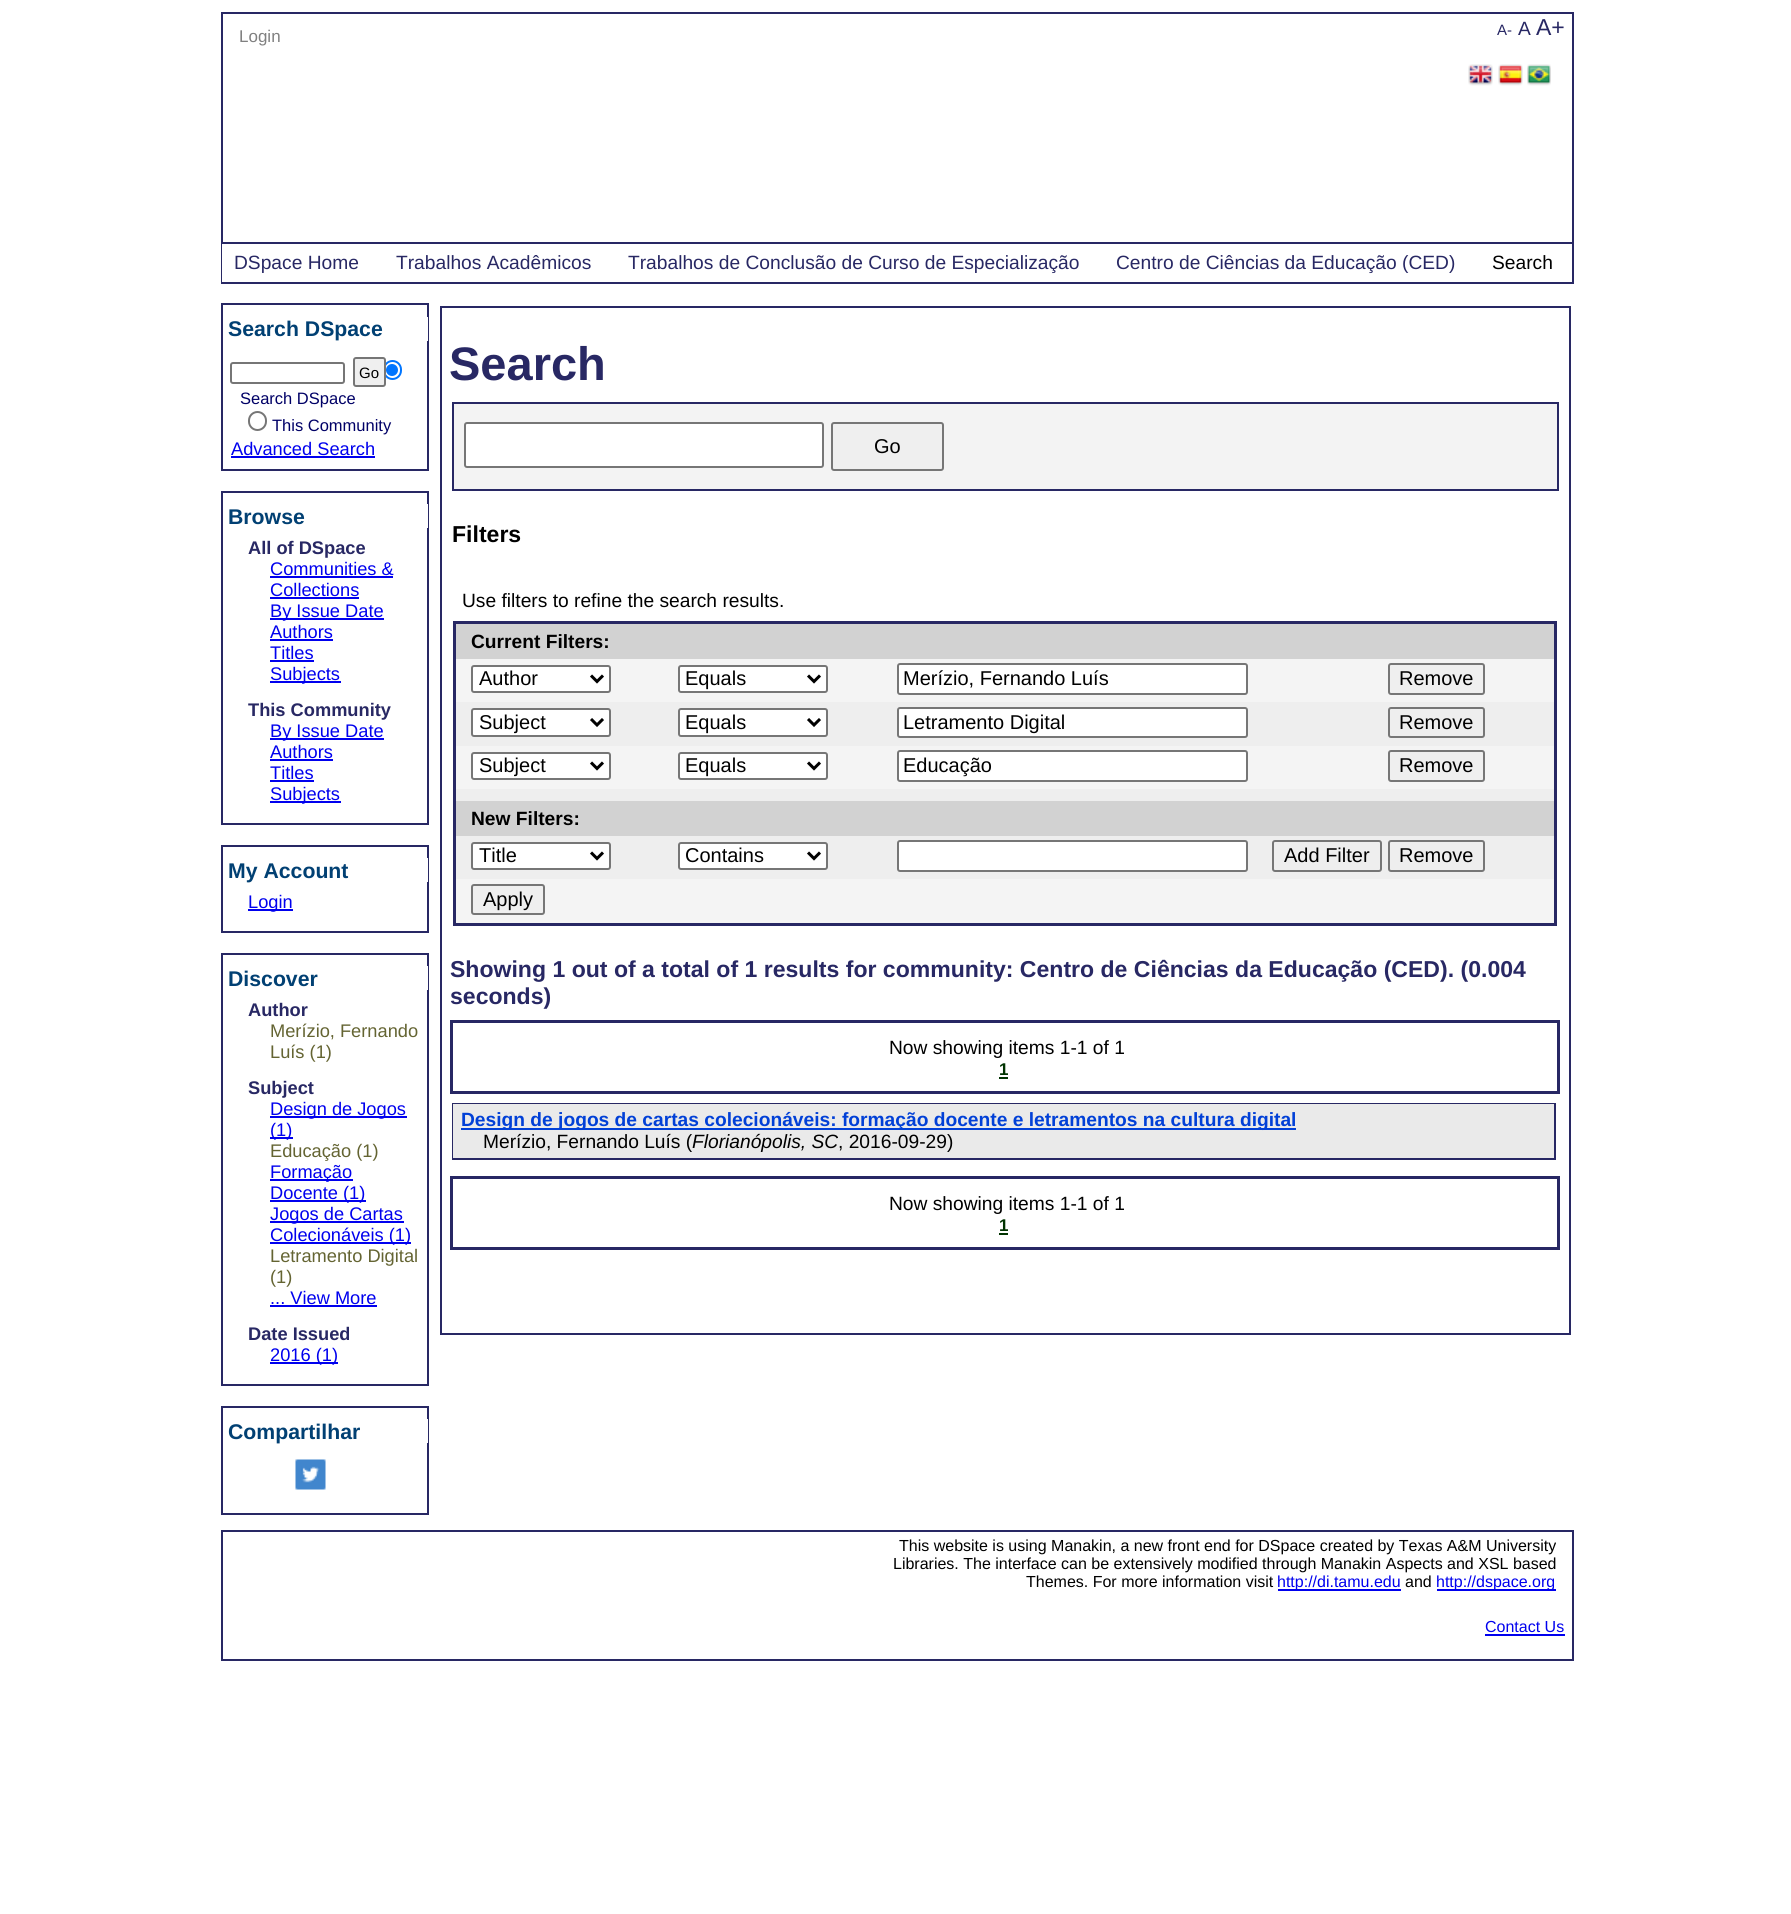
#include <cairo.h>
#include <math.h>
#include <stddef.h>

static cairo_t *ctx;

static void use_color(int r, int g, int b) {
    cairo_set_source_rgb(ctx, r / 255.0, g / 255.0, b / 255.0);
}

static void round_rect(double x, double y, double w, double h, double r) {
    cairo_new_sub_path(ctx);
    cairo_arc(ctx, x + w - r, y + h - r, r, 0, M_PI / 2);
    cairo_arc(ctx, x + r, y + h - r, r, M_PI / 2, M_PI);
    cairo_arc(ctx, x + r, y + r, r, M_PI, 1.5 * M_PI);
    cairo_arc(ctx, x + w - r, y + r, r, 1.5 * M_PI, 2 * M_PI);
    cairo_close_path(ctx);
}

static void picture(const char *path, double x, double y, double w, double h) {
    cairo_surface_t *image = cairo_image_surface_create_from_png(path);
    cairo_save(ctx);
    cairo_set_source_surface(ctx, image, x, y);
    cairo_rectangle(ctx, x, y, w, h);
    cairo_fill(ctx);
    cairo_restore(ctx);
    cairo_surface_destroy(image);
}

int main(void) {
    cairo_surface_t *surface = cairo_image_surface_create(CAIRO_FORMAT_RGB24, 1791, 1914);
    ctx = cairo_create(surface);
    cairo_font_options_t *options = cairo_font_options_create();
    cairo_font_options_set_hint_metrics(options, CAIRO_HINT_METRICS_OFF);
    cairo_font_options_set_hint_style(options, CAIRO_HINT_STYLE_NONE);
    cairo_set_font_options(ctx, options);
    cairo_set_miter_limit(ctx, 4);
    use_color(255, 255, 255);
    cairo_paint(ctx);
    cairo_rectangle(ctx, 222, 13, 1351, 270);
    use_color(40, 40, 100);
    cairo_stroke(ctx);
    cairo_select_font_face(ctx, "Liberation Sans", CAIRO_FONT_SLANT_NORMAL, CAIRO_FONT_WEIGHT_NORMAL);
    cairo_set_font_size(ctx, 15);
    cairo_move_to(ctx, 1497, 35);
    cairo_show_text(ctx, "A-");
    cairo_set_font_size(ctx, 19.2);
    cairo_move_to(ctx, 1518, 35);
    cairo_show_text(ctx, "A");
    cairo_set_font_size(ctx, 23.05);
    cairo_move_to(ctx, 1536, 35);
    cairo_show_text(ctx, "A+");
    cairo_set_font_size(ctx, 17);
    use_color(128, 128, 128);
    cairo_move_to(ctx, 239, 42);
    cairo_show_text(ctx, "Login");
    picture("img1.png", 1468, 64, 25, 22);
    picture("img2.png", 1498, 64, 25, 22);
    picture("img3.png", 1527, 64, 24, 22);
    use_color(255, 255, 255);
    cairo_rectangle(ctx, 222, 244, 1, 38);
    cairo_fill(ctx);
    use_color(40, 40, 100);
    cairo_rectangle(ctx, 222, 242, 1350, 2);
    cairo_fill(ctx);
    cairo_set_font_size(ctx, 19.2);
    cairo_move_to(ctx, 234, 269);
    cairo_show_text(ctx, "DSpace Home");
    cairo_move_to(ctx, 396, 269);
    cairo_show_text(ctx, "Trabalhos Acadêmicos");
    cairo_move_to(ctx, 628, 269);
    cairo_show_text(ctx, "Trabalhos de Conclusão de Curso de Especialização");
    cairo_move_to(ctx, 1116, 269);
    cairo_show_text(ctx, "Centro de Ciências da Educação (CED)");
    use_color(0, 0, 0);
    cairo_move_to(ctx, 1492, 269);
    cairo_show_text(ctx, "Search");
    cairo_rectangle(ctx, 222, 304, 206, 166);
    use_color(40, 40, 100);
    cairo_stroke(ctx);
    use_color(255, 255, 255);
    cairo_rectangle(ctx, 427, 317, 1, 24);
    cairo_fill(ctx);
    cairo_select_font_face(ctx, "Liberation Sans", CAIRO_FONT_SLANT_NORMAL, CAIRO_FONT_WEIGHT_BOLD);
    cairo_set_font_size(ctx, 21.25);
    use_color(1, 64, 115);
    cairo_move_to(ctx, 228, 336);
    cairo_show_text(ctx, "Search DSpace");
    round_rect(231, 363, 113, 20, 2);
    use_color(118, 118, 118);
    cairo_stroke(ctx);
    round_rect(384, 361, 17, 18, 8.5);
    use_color(0, 117, 255);
    cairo_stroke(ctx);
    use_color(239, 239, 239);
    round_rect(354, 358, 31, 28, 2);
    cairo_fill_preserve(ctx);
    use_color(118, 118, 118);
    cairo_stroke(ctx);
    cairo_select_font_face(ctx, "Liberation Sans", CAIRO_FONT_SLANT_NORMAL, CAIRO_FONT_WEIGHT_NORMAL);
    cairo_set_font_size(ctx, 15);
    use_color(0, 0, 0);
    cairo_move_to(ctx, 359, 378);
    cairo_show_text(ctx, "Go");
    use_color(0, 117, 255);
    cairo_new_path(ctx);
    cairo_arc(ctx, 392, 370, 6, 0, 2 * M_PI);
    cairo_fill(ctx);
    cairo_set_font_size(ctx, 16.5);
    use_color(0, 0, 102);
    cairo_move_to(ctx, 240, 404);
    cairo_show_text(ctx, "Search DSpace");
    round_rect(249, 412, 17, 18, 8.5);
    use_color(118, 118, 118);
    cairo_stroke(ctx);
    use_color(0, 0, 102);
    cairo_move_to(ctx, 272, 431);
    cairo_show_text(ctx, "This Community");
    cairo_set_font_size(ctx, 18.25);
    use_color(0, 0, 238);
    cairo_move_to(ctx, 231, 455);
    cairo_show_text(ctx, "Advanced Search");
    cairo_rectangle(ctx, 231, 456, 144, 2);
    cairo_fill(ctx);
    cairo_rectangle(ctx, 222, 492, 206, 332);
    use_color(40, 40, 100);
    cairo_stroke(ctx);
    use_color(255, 255, 255);
    cairo_rectangle(ctx, 427, 504, 1, 24);
    cairo_fill(ctx);
    cairo_select_font_face(ctx, "Liberation Sans", CAIRO_FONT_SLANT_NORMAL, CAIRO_FONT_WEIGHT_BOLD);
    cairo_set_font_size(ctx, 21.25);
    use_color(1, 64, 115);
    cairo_move_to(ctx, 228, 524);
    cairo_show_text(ctx, "Browse");
    cairo_set_font_size(ctx, 18.25);
    use_color(40, 40, 100);
    cairo_move_to(ctx, 248, 554);
    cairo_show_text(ctx, "All of DSpace");
    cairo_select_font_face(ctx, "Liberation Sans", CAIRO_FONT_SLANT_NORMAL, CAIRO_FONT_WEIGHT_NORMAL);
    use_color(0, 0, 238);
    cairo_move_to(ctx, 270, 575);
    cairo_show_text(ctx, "Communities &");
    cairo_rectangle(ctx, 270, 576, 123, 2);
    cairo_fill(ctx);
    cairo_move_to(ctx, 270, 596);
    cairo_show_text(ctx, "Collections");
    cairo_rectangle(ctx, 270, 597, 89, 2);
    cairo_fill(ctx);
    cairo_rectangle(ctx, 270, 618, 114, 2);
    cairo_fill(ctx);
    cairo_move_to(ctx, 270, 617);
    cairo_show_text(ctx, "By Issue Date");
    cairo_move_to(ctx, 270, 638);
    cairo_show_text(ctx, "Authors");
    cairo_rectangle(ctx, 270, 639, 63, 2);
    cairo_fill(ctx);
    cairo_move_to(ctx, 270, 659);
    cairo_show_text(ctx, "Titles");
    cairo_rectangle(ctx, 270, 660, 44, 2);
    cairo_fill(ctx);
    cairo_rectangle(ctx, 270, 681, 71, 2);
    cairo_fill(ctx);
    cairo_move_to(ctx, 270, 680);
    cairo_show_text(ctx, "Subjects");
    cairo_select_font_face(ctx, "Liberation Sans", CAIRO_FONT_SLANT_NORMAL, CAIRO_FONT_WEIGHT_BOLD);
    use_color(40, 40, 100);
    cairo_move_to(ctx, 248, 716);
    cairo_show_text(ctx, "This Community");
    use_color(0, 0, 238);
    cairo_rectangle(ctx, 270, 738, 114, 2);
    cairo_fill(ctx);
    cairo_select_font_face(ctx, "Liberation Sans", CAIRO_FONT_SLANT_NORMAL, CAIRO_FONT_WEIGHT_NORMAL);
    cairo_move_to(ctx, 270, 737);
    cairo_show_text(ctx, "By Issue Date");
    cairo_move_to(ctx, 270, 758);
    cairo_show_text(ctx, "Authors");
    cairo_rectangle(ctx, 270, 759, 63, 2);
    cairo_fill(ctx);
    cairo_move_to(ctx, 270, 779);
    cairo_show_text(ctx, "Titles");
    cairo_rectangle(ctx, 270, 780, 44, 2);
    cairo_fill(ctx);
    cairo_rectangle(ctx, 270, 801, 71, 2);
    cairo_fill(ctx);
    cairo_move_to(ctx, 270, 800);
    cairo_show_text(ctx, "Subjects");
    cairo_rectangle(ctx, 222, 846, 206, 86);
    use_color(40, 40, 100);
    cairo_stroke(ctx);
    use_color(255, 255, 255);
    cairo_rectangle(ctx, 427, 858, 1, 24);
    cairo_fill(ctx);
    cairo_select_font_face(ctx, "Liberation Sans", CAIRO_FONT_SLANT_NORMAL, CAIRO_FONT_WEIGHT_BOLD);
    cairo_set_font_size(ctx, 21.25);
    use_color(1, 64, 115);
    cairo_move_to(ctx, 228, 878);
    cairo_show_text(ctx, "My Account");
    use_color(0, 0, 238);
    cairo_rectangle(ctx, 248, 909, 45, 2);
    cairo_fill(ctx);
    cairo_select_font_face(ctx, "Liberation Sans", CAIRO_FONT_SLANT_NORMAL, CAIRO_FONT_WEIGHT_NORMAL);
    cairo_set_font_size(ctx, 18.25);
    cairo_move_to(ctx, 248, 908);
    cairo_show_text(ctx, "Login");
    cairo_rectangle(ctx, 222, 954, 206, 431);
    use_color(40, 40, 100);
    cairo_stroke(ctx);
    use_color(255, 255, 255);
    cairo_rectangle(ctx, 427, 966, 1, 24);
    cairo_fill(ctx);
    cairo_select_font_face(ctx, "Liberation Sans", CAIRO_FONT_SLANT_NORMAL, CAIRO_FONT_WEIGHT_BOLD);
    cairo_set_font_size(ctx, 21.25);
    use_color(1, 64, 115);
    cairo_move_to(ctx, 228, 986);
    cairo_show_text(ctx, "Discover");
    cairo_set_font_size(ctx, 18.25);
    use_color(40, 40, 100);
    cairo_move_to(ctx, 248, 1016);
    cairo_show_text(ctx, "Author");
    cairo_select_font_face(ctx, "Liberation Sans", CAIRO_FONT_SLANT_NORMAL, CAIRO_FONT_WEIGHT_NORMAL);
    use_color(100, 100, 50);
    cairo_move_to(ctx, 270, 1037);
    cairo_show_text(ctx, "Merízio, Fernando");
    cairo_move_to(ctx, 270, 1058);
    cairo_show_text(ctx, "Luís (1)");
    cairo_select_font_face(ctx, "Liberation Sans", CAIRO_FONT_SLANT_NORMAL, CAIRO_FONT_WEIGHT_BOLD);
    use_color(40, 40, 100);
    cairo_move_to(ctx, 248, 1094);
    cairo_show_text(ctx, "Subject");
    use_color(0, 0, 238);
    cairo_rectangle(ctx, 270, 1116, 137, 2);
    cairo_fill(ctx);
    cairo_select_font_face(ctx, "Liberation Sans", CAIRO_FONT_SLANT_NORMAL, CAIRO_FONT_WEIGHT_NORMAL);
    cairo_move_to(ctx, 270, 1115);
    cairo_show_text(ctx, "Design de Jogos");
    cairo_rectangle(ctx, 270, 1137, 23, 2);
    cairo_fill(ctx);
    cairo_move_to(ctx, 270, 1136);
    cairo_show_text(ctx, "(1)");
    use_color(100, 100, 50);
    cairo_move_to(ctx, 270, 1157);
    cairo_show_text(ctx, "Educação (1)");
    use_color(0, 0, 238);
    cairo_rectangle(ctx, 270, 1179, 83, 2);
    cairo_fill(ctx);
    cairo_move_to(ctx, 270, 1178);
    cairo_show_text(ctx, "Formação");
    cairo_rectangle(ctx, 270, 1200, 96, 2);
    cairo_fill(ctx);
    cairo_move_to(ctx, 270, 1199);
    cairo_show_text(ctx, "Docente (1)");
    cairo_rectangle(ctx, 270, 1221, 134, 2);
    cairo_fill(ctx);
    cairo_move_to(ctx, 270, 1220);
    cairo_show_text(ctx, "Jogos de Cartas");
    cairo_rectangle(ctx, 270, 1242, 141, 2);
    cairo_fill(ctx);
    cairo_move_to(ctx, 270, 1241);
    cairo_show_text(ctx, "Colecionáveis (1)");
    use_color(100, 100, 50);
    cairo_move_to(ctx, 270, 1262);
    cairo_show_text(ctx, "Letramento Digital");
    cairo_move_to(ctx, 270, 1283);
    cairo_show_text(ctx, "(1)");
    use_color(0, 0, 238);
    cairo_move_to(ctx, 270, 1304);
    cairo_show_text(ctx, "... View More");
    cairo_rectangle(ctx, 270, 1305, 107, 2);
    cairo_fill(ctx);
    cairo_select_font_face(ctx, "Liberation Sans", CAIRO_FONT_SLANT_NORMAL, CAIRO_FONT_WEIGHT_BOLD);
    use_color(40, 40, 100);
    cairo_move_to(ctx, 248, 1340);
    cairo_show_text(ctx, "Date Issued");
    use_color(0, 0, 238);
    cairo_rectangle(ctx, 270, 1362, 68, 2);
    cairo_fill(ctx);
    cairo_select_font_face(ctx, "Liberation Sans", CAIRO_FONT_SLANT_NORMAL, CAIRO_FONT_WEIGHT_NORMAL);
    cairo_move_to(ctx, 270, 1361);
    cairo_show_text(ctx, "2016 (1)");
    cairo_rectangle(ctx, 222, 1407, 206, 107);
    use_color(40, 40, 100);
    cairo_stroke(ctx);
    picture("img4.png", 295, 1459, 31, 31);
    use_color(255, 255, 255);
    cairo_rectangle(ctx, 427, 1419, 1, 24);
    cairo_fill(ctx);
    cairo_select_font_face(ctx, "Liberation Sans", CAIRO_FONT_SLANT_NORMAL, CAIRO_FONT_WEIGHT_BOLD);
    cairo_set_font_size(ctx, 21.25);
    use_color(1, 64, 115);
    cairo_move_to(ctx, 228, 1439);
    cairo_show_text(ctx, "Compartilhar");
    cairo_rectangle(ctx, 441, 307, 1129, 1027);
    use_color(40, 40, 100);
    cairo_stroke(ctx);
    cairo_set_font_size(ctx, 47);
    cairo_move_to(ctx, 449, 380);
    cairo_show_text(ctx, "Search");
    use_color(243, 243, 243);
    cairo_rectangle(ctx, 453, 403, 1105, 87);
    cairo_fill_preserve(ctx);
    use_color(40, 40, 100);
    cairo_stroke(ctx);
    use_color(255, 255, 255);
    round_rect(465, 423, 358, 44, 2);
    cairo_fill_preserve(ctx);
    use_color(118, 118, 118);
    cairo_stroke(ctx);
    use_color(239, 239, 239);
    round_rect(832, 423, 111, 47, 2);
    cairo_fill_preserve(ctx);
    use_color(118, 118, 118);
    cairo_stroke(ctx);
    cairo_select_font_face(ctx, "Liberation Sans", CAIRO_FONT_SLANT_NORMAL, CAIRO_FONT_WEIGHT_NORMAL);
    cairo_set_font_size(ctx, 20);
    use_color(0, 0, 0);
    cairo_move_to(ctx, 874, 453);
    cairo_show_text(ctx, "Go");
    cairo_select_font_face(ctx, "Liberation Sans", CAIRO_FONT_SLANT_NORMAL, CAIRO_FONT_WEIGHT_BOLD);
    cairo_set_font_size(ctx, 23.05);
    cairo_move_to(ctx, 452, 542);
    cairo_show_text(ctx, "Filters");
    cairo_select_font_face(ctx, "Liberation Sans", CAIRO_FONT_SLANT_NORMAL, CAIRO_FONT_WEIGHT_NORMAL);
    cairo_set_font_size(ctx, 19.2);
    cairo_move_to(ctx, 462, 607);
    cairo_show_text(ctx, "Use filters to refine the search results.");
    cairo_rectangle(ctx, 454.5, 622.5, 1101, 302);
    use_color(40, 40, 100);
    cairo_set_line_width(ctx, 3);
    cairo_stroke(ctx);
    use_color(210, 210, 210);
    cairo_rectangle(ctx, 456, 624, 1098, 35);
    cairo_fill(ctx);
    cairo_select_font_face(ctx, "Liberation Sans", CAIRO_FONT_SLANT_NORMAL, CAIRO_FONT_WEIGHT_BOLD);
    use_color(0, 0, 0);
    cairo_move_to(ctx, 471, 648);
    cairo_show_text(ctx, "Current Filters:");
    use_color(244, 244, 244);
    cairo_rectangle(ctx, 456, 659, 1098, 43);
    cairo_fill(ctx);
    use_color(255, 255, 255);
    round_rect(472, 666, 138, 26, 2);
    cairo_fill_preserve(ctx);
    use_color(118, 118, 118);
    cairo_set_line_width(ctx, 2);
    cairo_stroke(ctx);
    cairo_new_path(ctx);
    cairo_move_to(ctx, 591, 675.5);
    cairo_line_to(ctx, 597, 681.5);
    cairo_line_to(ctx, 603, 675.5);
    use_color(0, 0, 0);
    cairo_set_line_width(ctx, 3);
    cairo_stroke(ctx);
    cairo_select_font_face(ctx, "Liberation Sans", CAIRO_FONT_SLANT_NORMAL, CAIRO_FONT_WEIGHT_NORMAL);
    cairo_set_font_size(ctx, 20);
    cairo_move_to(ctx, 479, 685);
    cairo_show_text(ctx, "Author");
    use_color(255, 255, 255);
    round_rect(679, 666, 148, 26, 2);
    cairo_fill_preserve(ctx);
    use_color(118, 118, 118);
    cairo_set_line_width(ctx, 2);
    cairo_stroke(ctx);
    cairo_new_path(ctx);
    cairo_move_to(ctx, 808, 675.5);
    cairo_line_to(ctx, 814, 681.5);
    cairo_line_to(ctx, 820, 675.5);
    use_color(0, 0, 0);
    cairo_set_line_width(ctx, 3);
    cairo_stroke(ctx);
    cairo_move_to(ctx, 685, 685);
    cairo_show_text(ctx, "Equals");
    use_color(255, 255, 255);
    round_rect(898, 664, 349, 30, 2);
    cairo_fill_preserve(ctx);
    use_color(118, 118, 118);
    cairo_set_line_width(ctx, 2);
    cairo_stroke(ctx);
    use_color(0, 0, 0);
    cairo_move_to(ctx, 903, 685);
    cairo_show_text(ctx, "Merízio, Fernando Luís");
    use_color(239, 239, 239);
    round_rect(1389, 664, 95, 30, 2);
    cairo_fill_preserve(ctx);
    use_color(118, 118, 118);
    cairo_stroke(ctx);
    use_color(0, 0, 0);
    cairo_move_to(ctx, 1399, 685);
    cairo_show_text(ctx, "Remove");
    use_color(238, 238, 238);
    cairo_rectangle(ctx, 456, 702, 1098, 44);
    cairo_fill(ctx);
    use_color(255, 255, 255);
    round_rect(472, 709, 138, 27, 2);
    cairo_fill_preserve(ctx);
    use_color(118, 118, 118);
    cairo_stroke(ctx);
    cairo_new_path(ctx);
    cairo_move_to(ctx, 591, 719);
    cairo_line_to(ctx, 597, 725);
    cairo_line_to(ctx, 603, 719);
    use_color(0, 0, 0);
    cairo_set_line_width(ctx, 3);
    cairo_stroke(ctx);
    cairo_move_to(ctx, 479, 729);
    cairo_show_text(ctx, "Subject");
    use_color(255, 255, 255);
    round_rect(679, 709, 148, 27, 2);
    cairo_fill_preserve(ctx);
    use_color(118, 118, 118);
    cairo_set_line_width(ctx, 2);
    cairo_stroke(ctx);
    cairo_new_path(ctx);
    cairo_move_to(ctx, 808, 719);
    cairo_line_to(ctx, 814, 725);
    cairo_line_to(ctx, 820, 719);
    use_color(0, 0, 0);
    cairo_set_line_width(ctx, 3);
    cairo_stroke(ctx);
    cairo_move_to(ctx, 685, 729);
    cairo_show_text(ctx, "Equals");
    use_color(255, 255, 255);
    round_rect(898, 708, 349, 29, 2);
    cairo_fill_preserve(ctx);
    use_color(118, 118, 118);
    cairo_set_line_width(ctx, 2);
    cairo_stroke(ctx);
    use_color(0, 0, 0);
    cairo_move_to(ctx, 903, 729);
    cairo_show_text(ctx, "Letramento Digital");
    round_rect(1389, 708, 95, 29, 2);
    use_color(118, 118, 118);
    cairo_stroke(ctx);
    use_color(0, 0, 0);
    cairo_move_to(ctx, 1399, 729);
    cairo_show_text(ctx, "Remove");
    use_color(244, 244, 244);
    cairo_rectangle(ctx, 456, 746, 1098, 43);
    cairo_fill(ctx);
    use_color(255, 255, 255);
    round_rect(472, 753, 138, 26, 2);
    cairo_fill_preserve(ctx);
    use_color(118, 118, 118);
    cairo_stroke(ctx);
    cairo_new_path(ctx);
    cairo_move_to(ctx, 591, 762.5);
    cairo_line_to(ctx, 597, 768.5);
    cairo_line_to(ctx, 603, 762.5);
    use_color(0, 0, 0);
    cairo_set_line_width(ctx, 3);
    cairo_stroke(ctx);
    cairo_move_to(ctx, 479, 772);
    cairo_show_text(ctx, "Subject");
    use_color(255, 255, 255);
    round_rect(679, 753, 148, 26, 2);
    cairo_fill_preserve(ctx);
    use_color(118, 118, 118);
    cairo_set_line_width(ctx, 2);
    cairo_stroke(ctx);
    cairo_new_path(ctx);
    cairo_move_to(ctx, 808, 762.5);
    cairo_line_to(ctx, 814, 768.5);
    cairo_line_to(ctx, 820, 762.5);
    use_color(0, 0, 0);
    cairo_set_line_width(ctx, 3);
    cairo_stroke(ctx);
    cairo_move_to(ctx, 685, 772);
    cairo_show_text(ctx, "Equals");
    use_color(255, 255, 255);
    round_rect(898, 751, 349, 30, 2);
    cairo_fill_preserve(ctx);
    use_color(118, 118, 118);
    cairo_set_line_width(ctx, 2);
    cairo_stroke(ctx);
    use_color(0, 0, 0);
    cairo_move_to(ctx, 903, 772);
    cairo_show_text(ctx, "Educação");
    use_color(239, 239, 239);
    round_rect(1389, 751, 95, 30, 2);
    cairo_fill_preserve(ctx);
    use_color(118, 118, 118);
    cairo_stroke(ctx);
    use_color(0, 0, 0);
    cairo_move_to(ctx, 1399, 772);
    cairo_show_text(ctx, "Remove");
    use_color(238, 238, 238);
    cairo_rectangle(ctx, 456, 789, 1098, 12);
    cairo_fill(ctx);
    use_color(210, 210, 210);
    cairo_rectangle(ctx, 456, 801, 1098, 35);
    cairo_fill(ctx);
    cairo_select_font_face(ctx, "Liberation Sans", CAIRO_FONT_SLANT_NORMAL, CAIRO_FONT_WEIGHT_BOLD);
    cairo_set_font_size(ctx, 19.2);
    use_color(0, 0, 0);
    cairo_move_to(ctx, 471, 825);
    cairo_show_text(ctx, "New Filters:");
    use_color(238, 238, 238);
    cairo_rectangle(ctx, 456, 836, 1098, 43);
    cairo_fill(ctx);
    use_color(255, 255, 255);
    round_rect(472, 843, 138, 26, 2);
    cairo_fill_preserve(ctx);
    use_color(118, 118, 118);
    cairo_stroke(ctx);
    cairo_new_path(ctx);
    cairo_move_to(ctx, 591, 852.5);
    cairo_line_to(ctx, 597, 858.5);
    cairo_line_to(ctx, 603, 852.5);
    use_color(0, 0, 0);
    cairo_set_line_width(ctx, 3);
    cairo_stroke(ctx);
    cairo_select_font_face(ctx, "Liberation Sans", CAIRO_FONT_SLANT_NORMAL, CAIRO_FONT_WEIGHT_NORMAL);
    cairo_set_font_size(ctx, 20);
    cairo_move_to(ctx, 479, 862);
    cairo_show_text(ctx, "Title");
    use_color(255, 255, 255);
    round_rect(679, 843, 148, 26, 2);
    cairo_fill_preserve(ctx);
    use_color(118, 118, 118);
    cairo_set_line_width(ctx, 2);
    cairo_stroke(ctx);
    cairo_new_path(ctx);
    cairo_move_to(ctx, 808, 852.5);
    cairo_line_to(ctx, 814, 858.5);
    cairo_line_to(ctx, 820, 852.5);
    use_color(0, 0, 0);
    cairo_set_line_width(ctx, 3);
    cairo_stroke(ctx);
    cairo_move_to(ctx, 685, 862);
    cairo_show_text(ctx, "Contains");
    use_color(255, 255, 255);
    round_rect(898, 841, 349, 30, 2);
    cairo_fill_preserve(ctx);
    use_color(118, 118, 118);
    cairo_set_line_width(ctx, 2);
    cairo_stroke(ctx);
    round_rect(1273, 841, 108, 30, 2);
    cairo_stroke(ctx);
    use_color(0, 0, 0);
    cairo_move_to(ctx, 1284, 862);
    cairo_show_text(ctx, "Add Filter");
    round_rect(1389, 841, 95, 30, 2);
    use_color(118, 118, 118);
    cairo_stroke(ctx);
    use_color(0, 0, 0);
    cairo_move_to(ctx, 1399, 862);
    cairo_show_text(ctx, "Remove");
    use_color(244, 244, 244);
    cairo_rectangle(ctx, 456, 879, 1098, 44);
    cairo_fill(ctx);
    use_color(239, 239, 239);
    round_rect(472, 885, 72, 29, 2);
    cairo_fill_preserve(ctx);
    use_color(118, 118, 118);
    cairo_stroke(ctx);
    use_color(0, 0, 0);
    cairo_move_to(ctx, 483, 906);
    cairo_show_text(ctx, "Apply");
    cairo_select_font_face(ctx, "Liberation Sans", CAIRO_FONT_SLANT_NORMAL, CAIRO_FONT_WEIGHT_BOLD);
    cairo_set_font_size(ctx, 23.05);
    use_color(40, 40, 100);
    cairo_move_to(ctx, 450, 977);
    cairo_show_text(ctx, "Showing 1 out of a total of 1 results for community: Centro de Ciências da Educação (CED). (0.004");
    cairo_move_to(ctx, 450, 1004);
    cairo_show_text(ctx, "seconds)");
    cairo_rectangle(ctx, 451.5, 1021.5, 1107, 71);
    cairo_set_line_width(ctx, 3);
    cairo_stroke(ctx);
    cairo_select_font_face(ctx, "Liberation Sans", CAIRO_FONT_SLANT_NORMAL, CAIRO_FONT_WEIGHT_NORMAL);
    cairo_set_font_size(ctx, 19.2);
    use_color(0, 0, 0);
    cairo_move_to(ctx, 889, 1054);
    cairo_show_text(ctx, "Now showing items 1-1 of 1");
    cairo_select_font_face(ctx, "Liberation Sans", CAIRO_FONT_SLANT_NORMAL, CAIRO_FONT_WEIGHT_BOLD);
    cairo_set_font_size(ctx, 17);
    use_color(0, 51, 0);
    cairo_move_to(ctx, 999, 1075);
    cairo_show_text(ctx, "1");
    cairo_rectangle(ctx, 999, 1077, 9, 2);
    cairo_fill(ctx);
    cairo_rectangle(ctx, 453, 1104, 1102, 55);
    use_color(40, 40, 100);
    cairo_set_line_width(ctx, 2);
    cairo_stroke(ctx);
    use_color(234, 234, 234);
    cairo_rectangle(ctx, 453, 1104, 1101, 54);
    cairo_fill(ctx);
    use_color(1, 64, 215);
    cairo_rectangle(ctx, 461, 1128, 835, 2);
    cairo_fill(ctx);
    cairo_set_font_size(ctx, 19.2);
    cairo_move_to(ctx, 461, 1126);
    cairo_show_text(ctx, "Design de jogos de cartas colecionáveis: formação docente e letramentos na cultura digital");
    cairo_select_font_face(ctx, "Liberation Sans", CAIRO_FONT_SLANT_NORMAL, CAIRO_FONT_WEIGHT_NORMAL);
    use_color(0, 0, 0);
    cairo_move_to(ctx, 483, 1148);
    cairo_show_text(ctx, "Merízio, Fernando Luís (");
    cairo_select_font_face(ctx, "Liberation Sans", CAIRO_FONT_SLANT_ITALIC, CAIRO_FONT_WEIGHT_NORMAL);
    cairo_move_to(ctx, 692, 1148);
    cairo_show_text(ctx, "Florianópolis, SC");
    cairo_select_font_face(ctx, "Liberation Sans", CAIRO_FONT_SLANT_NORMAL, CAIRO_FONT_WEIGHT_NORMAL);
    cairo_move_to(ctx, 838, 1148);
    cairo_show_text(ctx, ", 2016-09-29)");
    cairo_rectangle(ctx, 451.5, 1177.5, 1107, 71);
    use_color(40, 40, 100);
    cairo_set_line_width(ctx, 3);
    cairo_stroke(ctx);
    use_color(0, 0, 0);
    cairo_move_to(ctx, 889, 1210);
    cairo_show_text(ctx, "Now showing items 1-1 of 1");
    cairo_select_font_face(ctx, "Liberation Sans", CAIRO_FONT_SLANT_NORMAL, CAIRO_FONT_WEIGHT_BOLD);
    cairo_set_font_size(ctx, 17);
    use_color(0, 51, 0);
    cairo_move_to(ctx, 999, 1231);
    cairo_show_text(ctx, "1");
    cairo_rectangle(ctx, 999, 1233, 9, 2);
    cairo_fill(ctx);
    cairo_rectangle(ctx, 222, 1531, 1351, 129);
    use_color(40, 40, 100);
    cairo_set_line_width(ctx, 2);
    cairo_stroke(ctx);
    cairo_select_font_face(ctx, "Liberation Sans", CAIRO_FONT_SLANT_NORMAL, CAIRO_FONT_WEIGHT_NORMAL);
    cairo_set_font_size(ctx, 16);
    use_color(0, 0, 0);
    cairo_move_to(ctx, 899, 1551);
    cairo_show_text(ctx, "This website is using Manakin, a new front end for DSpace created by Texas A&M University");
    cairo_move_to(ctx, 893, 1569);
    cairo_show_text(ctx, "Libraries. The interface can be extensively modified through Manakin Aspects and XSL based");
    cairo_move_to(ctx, 1026, 1587);
    cairo_show_text(ctx, "Themes. For more information visit");
    use_color(0, 0, 238);
    cairo_rectangle(ctx, 1278, 1589, 123, 2);
    cairo_fill(ctx);
    cairo_move_to(ctx, 1277, 1587);
    cairo_show_text(ctx, "http://di.tamu.edu");
    use_color(0, 0, 0);
    cairo_move_to(ctx, 1405, 1587);
    cairo_show_text(ctx, "and");
    use_color(0, 0, 238);
    cairo_rectangle(ctx, 1437, 1589, 119, 2);
    cairo_fill(ctx);
    cairo_move_to(ctx, 1436, 1587);
    cairo_show_text(ctx, "http://dspace.org");
    cairo_move_to(ctx, 1485, 1632);
    cairo_show_text(ctx, "Contact Us");
    cairo_rectangle(ctx, 1485, 1634, 80, 2);
    cairo_fill(ctx);
    cairo_surface_write_to_png(surface, "result.png");
    cairo_font_options_destroy(options);
    cairo_destroy(ctx);
    cairo_surface_destroy(surface);
    return 0;
}
